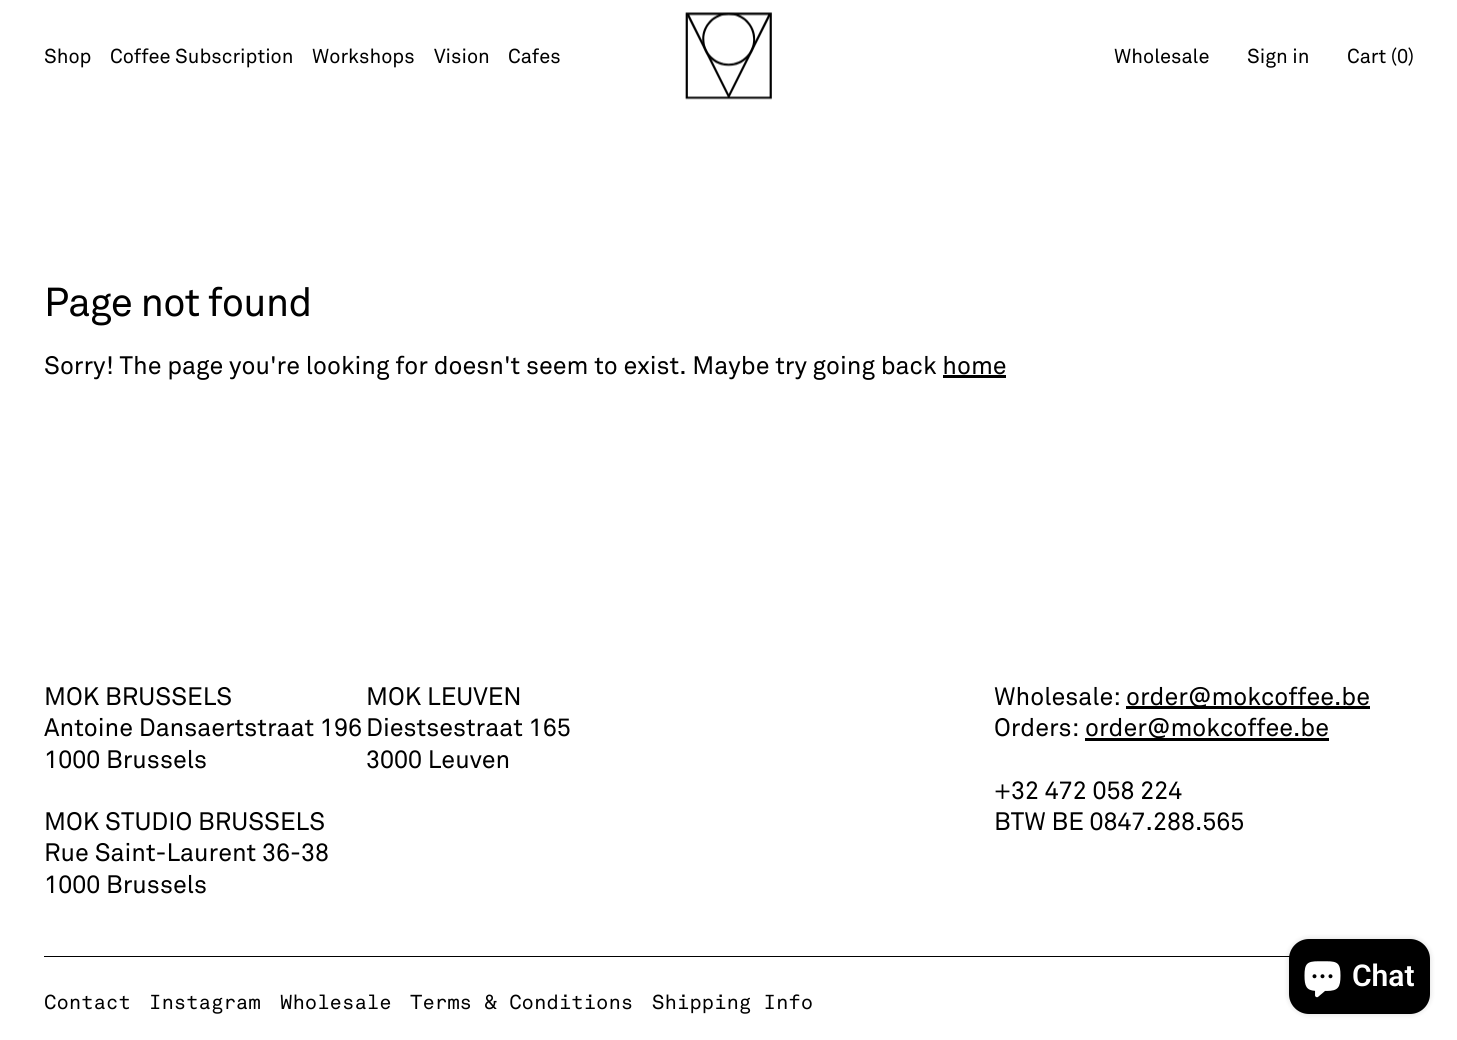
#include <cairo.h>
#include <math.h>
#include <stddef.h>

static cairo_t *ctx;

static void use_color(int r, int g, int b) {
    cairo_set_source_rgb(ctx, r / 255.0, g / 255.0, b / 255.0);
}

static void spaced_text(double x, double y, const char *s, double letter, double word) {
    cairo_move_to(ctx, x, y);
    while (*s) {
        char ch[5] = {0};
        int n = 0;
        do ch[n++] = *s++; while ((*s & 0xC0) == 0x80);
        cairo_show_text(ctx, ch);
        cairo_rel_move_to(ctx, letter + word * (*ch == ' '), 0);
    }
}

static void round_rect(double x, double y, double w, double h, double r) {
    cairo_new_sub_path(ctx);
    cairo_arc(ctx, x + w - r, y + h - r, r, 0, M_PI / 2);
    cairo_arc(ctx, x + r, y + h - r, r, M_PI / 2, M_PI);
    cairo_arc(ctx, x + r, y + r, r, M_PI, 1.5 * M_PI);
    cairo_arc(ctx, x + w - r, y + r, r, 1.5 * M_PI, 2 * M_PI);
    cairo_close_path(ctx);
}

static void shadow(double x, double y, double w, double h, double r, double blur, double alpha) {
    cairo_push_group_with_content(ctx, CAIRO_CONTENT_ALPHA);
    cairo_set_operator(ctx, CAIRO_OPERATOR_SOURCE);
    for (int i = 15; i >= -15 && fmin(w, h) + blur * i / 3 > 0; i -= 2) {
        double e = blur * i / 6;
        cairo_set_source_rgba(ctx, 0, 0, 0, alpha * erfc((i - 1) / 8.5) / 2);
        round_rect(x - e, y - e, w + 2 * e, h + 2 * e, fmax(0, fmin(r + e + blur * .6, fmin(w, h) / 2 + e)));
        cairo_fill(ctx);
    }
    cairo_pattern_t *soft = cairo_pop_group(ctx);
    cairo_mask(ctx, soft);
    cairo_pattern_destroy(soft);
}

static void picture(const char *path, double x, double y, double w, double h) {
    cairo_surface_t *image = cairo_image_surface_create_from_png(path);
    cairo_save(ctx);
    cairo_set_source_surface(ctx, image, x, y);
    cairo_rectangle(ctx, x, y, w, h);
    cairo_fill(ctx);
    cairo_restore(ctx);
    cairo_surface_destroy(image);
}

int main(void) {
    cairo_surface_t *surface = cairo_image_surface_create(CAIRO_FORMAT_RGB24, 1457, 1040);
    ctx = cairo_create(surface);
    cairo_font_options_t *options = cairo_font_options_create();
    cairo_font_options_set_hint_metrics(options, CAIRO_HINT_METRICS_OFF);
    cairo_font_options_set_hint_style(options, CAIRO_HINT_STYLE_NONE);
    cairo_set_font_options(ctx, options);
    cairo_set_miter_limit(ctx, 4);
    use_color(255, 255, 255);
    cairo_paint(ctx);
    cairo_select_font_face(ctx, "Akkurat", CAIRO_FONT_SLANT_NORMAL, CAIRO_FONT_WEIGHT_NORMAL);
    cairo_set_font_size(ctx, 20);
    use_color(0, 0, 0);
    cairo_move_to(ctx, 44, 63);
    cairo_show_text(ctx, "Shop");
    cairo_move_to(ctx, 110, 63);
    cairo_show_text(ctx, "Coffee Subscription");
    cairo_move_to(ctx, 312, 63);
    cairo_show_text(ctx, "Workshops");
    cairo_move_to(ctx, 434, 63);
    cairo_show_text(ctx, "Vision");
    cairo_move_to(ctx, 508, 63);
    cairo_show_text(ctx, "Cafes");
    picture("img1.png", 685, 12, 87, 88);
    cairo_move_to(ctx, 1114, 63);
    cairo_show_text(ctx, "Wholesale");
    cairo_move_to(ctx, 1247, 63);
    cairo_show_text(ctx, "Sign in");
    cairo_move_to(ctx, 1347, 63);
    cairo_show_text(ctx, "Cart (0)");
    cairo_set_font_size(ctx, 40);
    spaced_text(44, 316, "Page not found", -0.75, 0);
    cairo_set_font_size(ctx, 25);
    cairo_move_to(ctx, 44, 374);
    cairo_show_text(ctx, "Sorry! The page you're looking for doesn't seem to exist. Maybe try going back home");
    cairo_rectangle(ctx, 943, 375, 63, 3);
    cairo_fill(ctx);
    cairo_move_to(ctx, 44, 705);
    cairo_show_text(ctx, "MOK BRUSSELS");
    cairo_move_to(ctx, 44, 736);
    cairo_show_text(ctx, "Antoine Dansaertstraat 196");
    cairo_move_to(ctx, 44, 768);
    cairo_show_text(ctx, "1000 Brussels");
    cairo_move_to(ctx, 44, 830);
    cairo_show_text(ctx, "MOK STUDIO BRUSSELS");
    cairo_move_to(ctx, 44, 861);
    cairo_show_text(ctx, "Rue Saint-Laurent 36-38");
    cairo_move_to(ctx, 44, 893);
    cairo_show_text(ctx, "1000 Brussels");
    cairo_move_to(ctx, 366, 705);
    cairo_show_text(ctx, "MOK LEUVEN");
    cairo_move_to(ctx, 366, 736);
    cairo_show_text(ctx, "Diestsestraat 165");
    cairo_move_to(ctx, 366, 768);
    cairo_show_text(ctx, "3000 Leuven");
    cairo_move_to(ctx, 994, 705);
    cairo_show_text(ctx, "Wholesale:");
    cairo_rectangle(ctx, 1126, 706, 244, 3);
    cairo_fill(ctx);
    cairo_move_to(ctx, 1126, 705);
    cairo_show_text(ctx, "order@mokcoffee.be");
    cairo_move_to(ctx, 994, 736);
    cairo_show_text(ctx, "Orders:");
    cairo_rectangle(ctx, 1085, 738, 244, 3);
    cairo_fill(ctx);
    cairo_move_to(ctx, 1085, 736);
    cairo_show_text(ctx, "order@mokcoffee.be");
    cairo_move_to(ctx, 994, 799);
    cairo_show_text(ctx, "+32 472 058 224");
    cairo_move_to(ctx, 994, 830);
    cairo_show_text(ctx, "BTW BE 0847.288.565");
    cairo_rectangle(ctx, 44, 956, 1246, 1);
    cairo_fill(ctx);
    cairo_select_font_face(ctx, "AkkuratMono", CAIRO_FONT_SLANT_NORMAL, CAIRO_FONT_WEIGHT_NORMAL);
    cairo_set_font_size(ctx, 20);
    cairo_move_to(ctx, 44, 1009);
    cairo_show_text(ctx, "Contact");
    cairo_move_to(ctx, 149, 1009);
    cairo_show_text(ctx, "Instagram");
    cairo_move_to(ctx, 280, 1009);
    cairo_show_text(ctx, "Wholesale");
    cairo_move_to(ctx, 410, 1009);
    cairo_show_text(ctx, "Terms & Conditions");
    cairo_move_to(ctx, 652, 1009);
    cairo_show_text(ctx, "Shipping Info");
    use_color(0, 0, 0);
    shadow(1289, 939, 141, 75, 20, 3, 0.15);
    use_color(0, 0, 0);
    round_rect(1289, 939, 141, 75, 20);
    cairo_fill(ctx);
    picture("img2.png", 1304, 961, 37, 37);
    cairo_select_font_face(ctx, "Roboto SemiBold", CAIRO_FONT_SLANT_NORMAL, CAIRO_FONT_WEIGHT_NORMAL);
    cairo_set_font_size(ctx, 30);
    use_color(255, 255, 255);
    cairo_move_to(ctx, 1352, 986);
    cairo_show_text(ctx, "Chat");
    cairo_surface_write_to_png(surface, "result.png");
    cairo_font_options_destroy(options);
    cairo_destroy(ctx);
    cairo_surface_destroy(surface);
    return 0;
}
